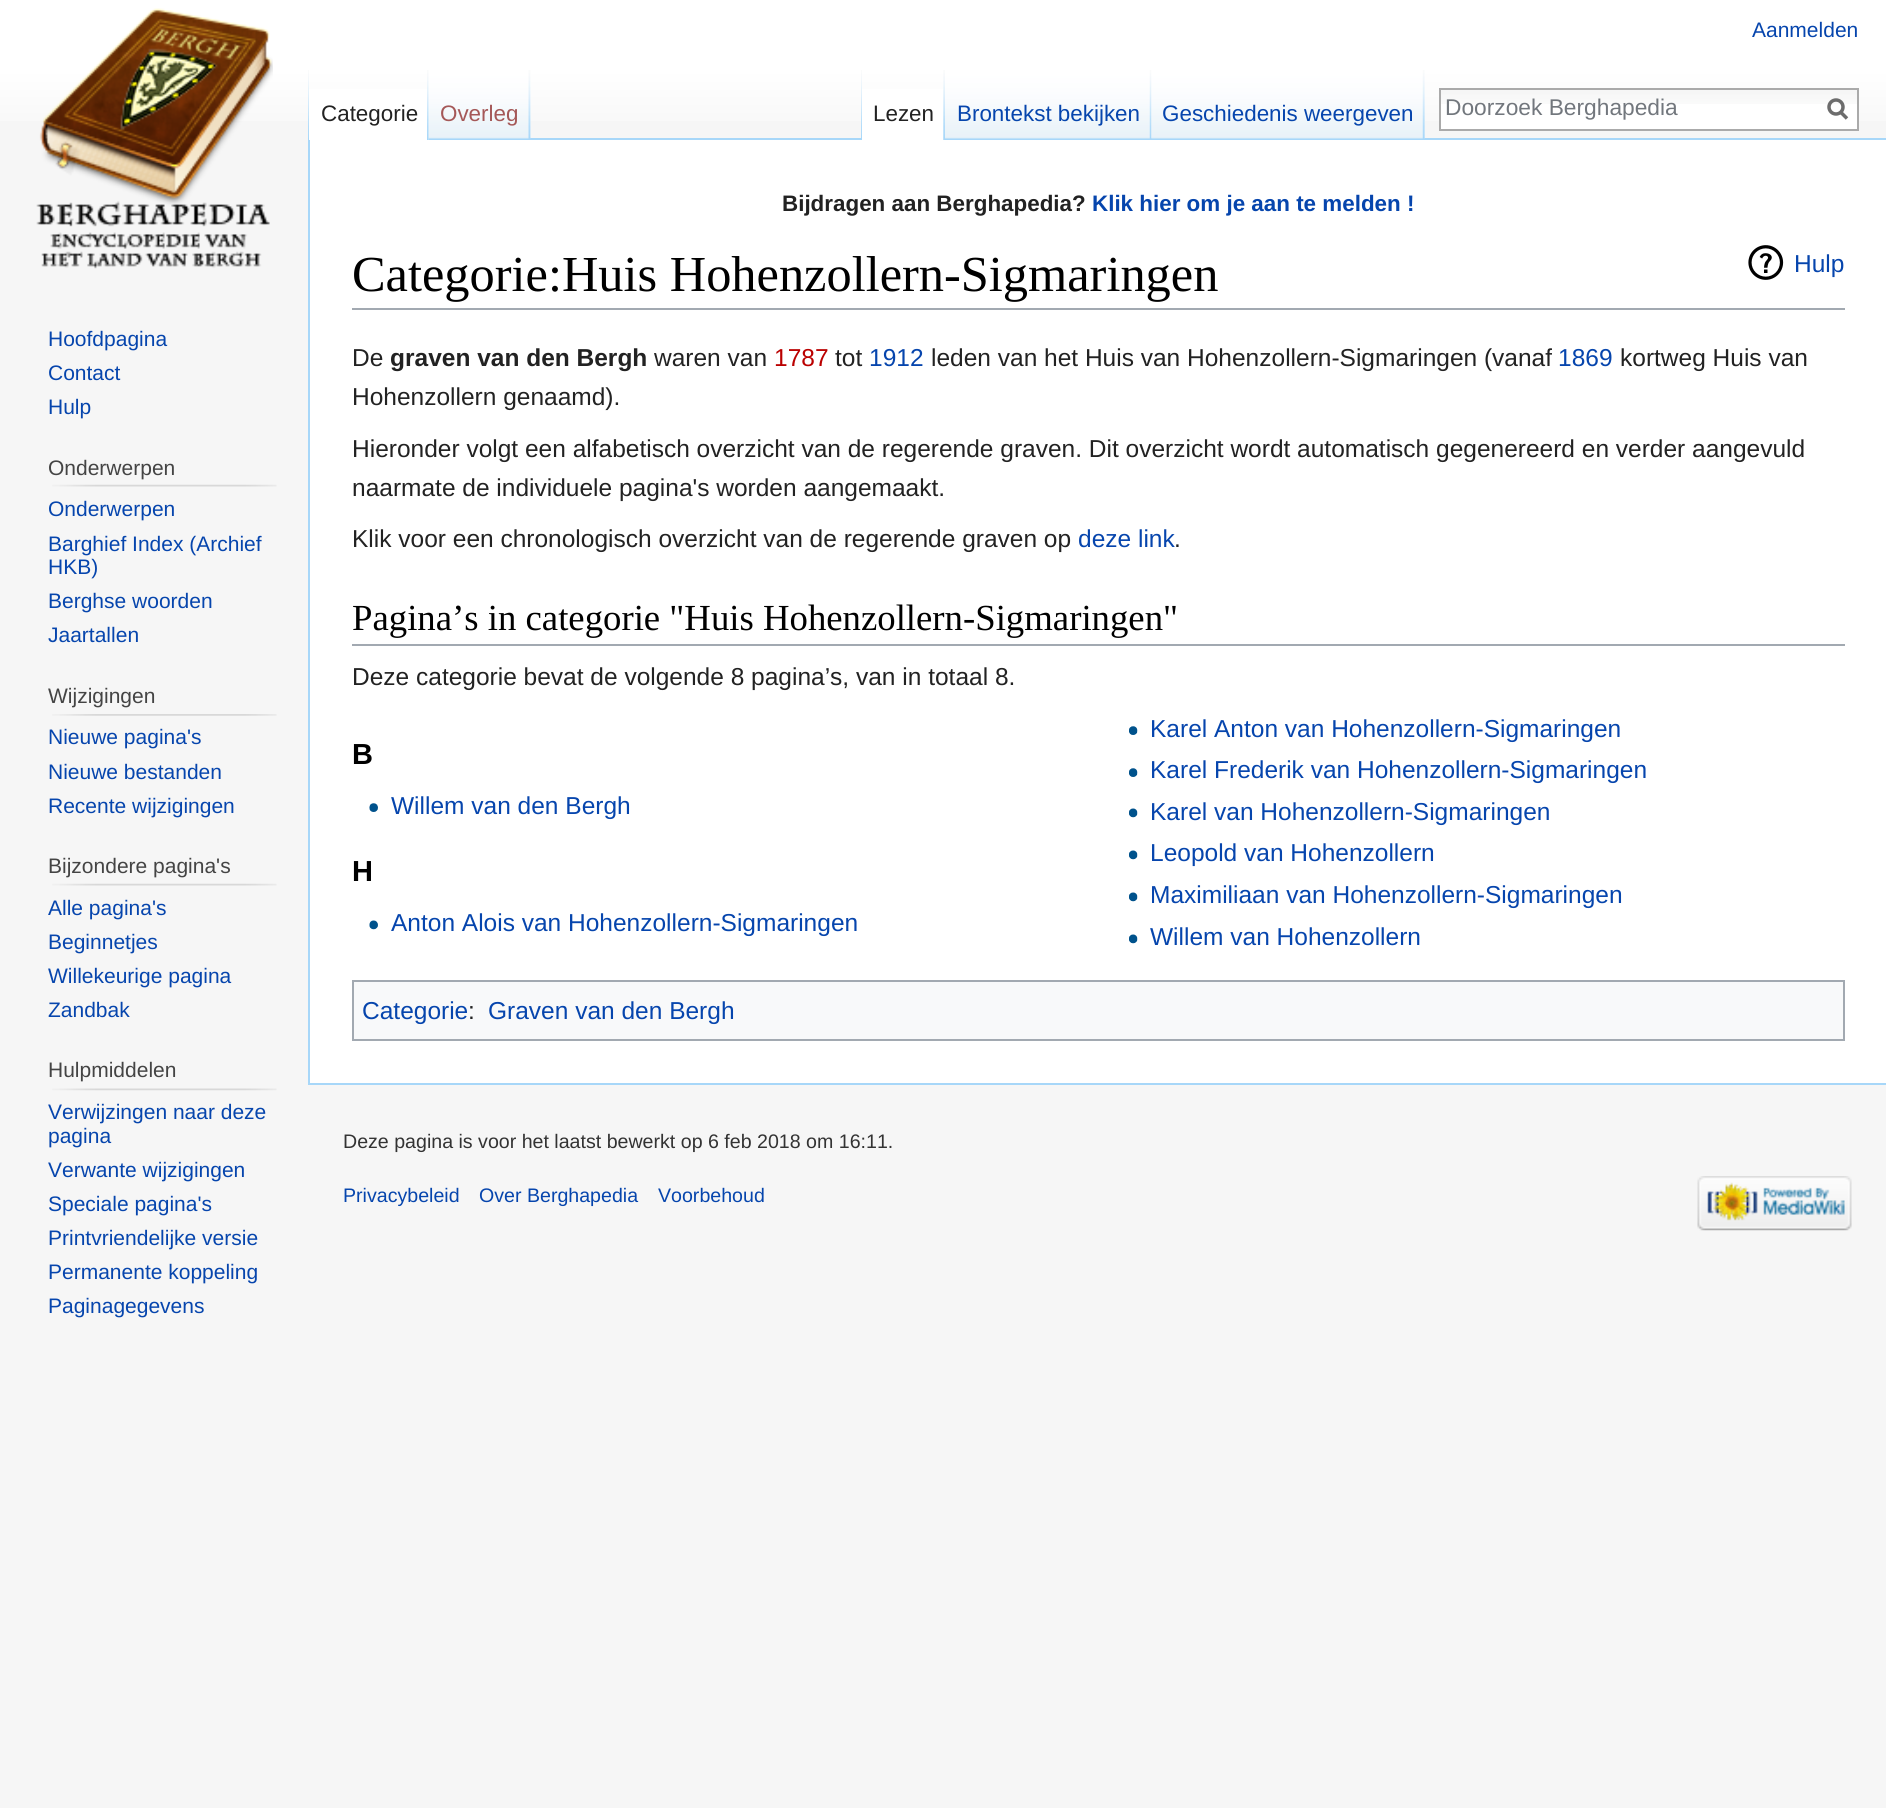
#include <cairo.h>
#include <math.h>
#include <stddef.h>

static cairo_t *ctx;

static void use_color(int r, int g, int b) {
    cairo_set_source_rgb(ctx, r / 255.0, g / 255.0, b / 255.0);
}

static void picture(const char *path, double x, double y, double w, double h) {
    cairo_surface_t *image = cairo_image_surface_create_from_png(path);
    cairo_save(ctx);
    cairo_set_source_surface(ctx, image, x, y);
    cairo_rectangle(ctx, x, y, w, h);
    cairo_fill(ctx);
    cairo_restore(ctx);
    cairo_surface_destroy(image);
}

int main(void) {
    cairo_surface_t *surface = cairo_image_surface_create(CAIRO_FORMAT_RGB24, 1886, 1808);
    ctx = cairo_create(surface);
    cairo_font_options_t *options = cairo_font_options_create();
    cairo_font_options_set_hint_metrics(options, CAIRO_HINT_METRICS_OFF);
    cairo_font_options_set_hint_style(options, CAIRO_HINT_STYLE_NONE);
    cairo_set_font_options(ctx, options);
    cairo_set_miter_limit(ctx, 4);
    cairo_pattern_t *gradient;
    use_color(246, 246, 246);
    cairo_paint(ctx);
    gradient = cairo_pattern_create_linear(943, 0, 943, 140);
    cairo_pattern_add_color_stop_rgba(gradient, 0.5, 1, 1, 1, 1);
    cairo_pattern_add_color_stop_rgba(gradient, 1, 0.965, 0.965, 0.965, 1);
    cairo_set_source(ctx, gradient);
    cairo_pattern_destroy(gradient);
    cairo_rectangle(ctx, 0, 0, 1886, 121);
    cairo_fill(ctx);
    cairo_select_font_face(ctx, "Liberation Sans", CAIRO_FONT_SLANT_NORMAL, CAIRO_FONT_WEIGHT_NORMAL);
    cairo_set_font_size(ctx, 21);
    use_color(6, 69, 173);
    cairo_move_to(ctx, 1752, 37);
    cairo_show_text(ctx, "Aanmelden");
    picture("img1.png", 308, 70, 1, 68);
    picture("img2.png", 530, 70, 1, 68);
    use_color(167, 215, 249);
    cairo_rectangle(ctx, 308, 1083, 1578, 2);
    cairo_fill(ctx);
    cairo_rectangle(ctx, 308, 138, 2, 947);
    cairo_fill(ctx);
    use_color(255, 255, 255);
    cairo_rectangle(ctx, 309, 89, 120, 51);
    cairo_fill(ctx);
    picture("img3.png", 427, 70, 2, 70);
    cairo_set_font_size(ctx, 22.4);
    use_color(34, 34, 34);
    cairo_move_to(ctx, 321, 121);
    cairo_show_text(ctx, "Categorie");
    use_color(167, 215, 249);
    cairo_rectangle(ctx, 530, 138, 1356, 2);
    cairo_fill(ctx);
    picture("img4.png", 428, 70, 103, 70);
    picture("img5.png", 528, 70, 3, 69);
    use_color(165, 88, 88);
    cairo_move_to(ctx, 440, 121);
    cairo_show_text(ctx, "Overleg");
    picture("img1.png", 861, 70, 1, 68);
    picture("img6.png", 1424, 70, 1, 68);
    use_color(255, 255, 255);
    cairo_rectangle(ctx, 862, 89, 82, 51);
    cairo_fill(ctx);
    picture("img7.png", 943, 70, 2, 70);
    use_color(34, 34, 34);
    cairo_move_to(ctx, 873, 121);
    cairo_show_text(ctx, "Lezen");
    picture("img8.png", 945, 70, 207, 70);
    picture("img9.png", 1149, 70, 3, 70);
    use_color(6, 69, 173);
    cairo_move_to(ctx, 957, 121);
    cairo_show_text(ctx, "Brontekst bekijken");
    picture("img10.png", 1151, 70, 274, 70);
    picture("img9.png", 1422, 70, 3, 70);
    cairo_move_to(ctx, 1162, 121);
    cairo_show_text(ctx, "Geschiedenis weergeven");
    use_color(255, 255, 255);
    cairo_rectangle(ctx, 1441, 104, 416, 25);
    cairo_fill(ctx);
    picture("img11.png", 1441, 90, 416, 14);
    cairo_rectangle(ctx, 1440, 89, 418, 41);
    use_color(170, 170, 170);
    cairo_stroke(ctx);
    cairo_set_font_size(ctx, 22.75);
    use_color(114, 119, 125);
    cairo_move_to(ctx, 1445, 115);
    cairo_show_text(ctx, "Doorzoek Berghapedia");
    cairo_new_path(ctx);
    cairo_move_to(ctx, 1847, 118.5);
    cairo_line_to(ctx, 1840, 111.5);
    use_color(108, 108, 108);
    cairo_set_line_width(ctx, 3.5);
    cairo_stroke(ctx);
    cairo_arc(ctx, 1836, 107, 7, 0, 2 * M_PI);
    cairo_stroke(ctx);
    picture("img12.png", 36, 8, 237, 261);
    cairo_set_font_size(ctx, 21);
    use_color(6, 69, 173);
    cairo_move_to(ctx, 48, 346);
    cairo_show_text(ctx, "Hoofdpagina");
    cairo_move_to(ctx, 48, 380);
    cairo_show_text(ctx, "Contact");
    cairo_move_to(ctx, 48, 414);
    cairo_show_text(ctx, "Hulp");
    use_color(68, 68, 68);
    cairo_move_to(ctx, 48, 475);
    cairo_show_text(ctx, "Onderwerpen");
    picture("img13.png", 52, 484, 225, 3);
    use_color(6, 69, 173);
    cairo_move_to(ctx, 48, 516);
    cairo_show_text(ctx, "Onderwerpen");
    cairo_move_to(ctx, 48, 551);
    cairo_show_text(ctx, "Barghief Index (Archief");
    cairo_move_to(ctx, 48, 574);
    cairo_show_text(ctx, "HKB)");
    cairo_move_to(ctx, 48, 608);
    cairo_show_text(ctx, "Berghse woorden");
    cairo_move_to(ctx, 48, 642);
    cairo_show_text(ctx, "Jaartallen");
    use_color(68, 68, 68);
    cairo_move_to(ctx, 48, 703);
    cairo_show_text(ctx, "Wijzigingen");
    picture("img14.png", 52, 714, 225, 2);
    use_color(6, 69, 173);
    cairo_move_to(ctx, 48, 744);
    cairo_show_text(ctx, "Nieuwe pagina's");
    cairo_move_to(ctx, 48, 779);
    cairo_show_text(ctx, "Nieuwe bestanden");
    cairo_move_to(ctx, 48, 813);
    cairo_show_text(ctx, "Recente wijzigingen");
    use_color(68, 68, 68);
    cairo_move_to(ctx, 48, 873);
    cairo_show_text(ctx, "Bijzondere pagina's");
    picture("img13.png", 52, 883, 225, 3);
    use_color(6, 69, 173);
    cairo_move_to(ctx, 48, 915);
    cairo_show_text(ctx, "Alle pagina's");
    cairo_move_to(ctx, 48, 949);
    cairo_show_text(ctx, "Beginnetjes");
    cairo_move_to(ctx, 48, 983);
    cairo_show_text(ctx, "Willekeurige pagina");
    cairo_move_to(ctx, 48, 1017);
    cairo_show_text(ctx, "Zandbak");
    use_color(68, 68, 68);
    cairo_move_to(ctx, 48, 1077);
    cairo_show_text(ctx, "Hulpmiddelen");
    picture("img15.png", 52, 1088, 225, 3);
    use_color(6, 69, 173);
    cairo_move_to(ctx, 48, 1119);
    cairo_show_text(ctx, "Verwijzingen naar deze");
    cairo_move_to(ctx, 48, 1143);
    cairo_show_text(ctx, "pagina");
    cairo_move_to(ctx, 48, 1177);
    cairo_show_text(ctx, "Verwante wijzigingen");
    cairo_move_to(ctx, 48, 1211);
    cairo_show_text(ctx, "Speciale pagina's");
    cairo_move_to(ctx, 48, 1245);
    cairo_show_text(ctx, "Printvriendelijke versie");
    cairo_move_to(ctx, 48, 1279);
    cairo_show_text(ctx, "Permanente koppeling");
    cairo_move_to(ctx, 48, 1313);
    cairo_show_text(ctx, "Paginagegevens");
    use_color(255, 255, 255);
    cairo_rectangle(ctx, 310, 140, 1576, 943);
    cairo_fill(ctx);
    cairo_select_font_face(ctx, "Liberation Sans", CAIRO_FONT_SLANT_NORMAL, CAIRO_FONT_WEIGHT_BOLD);
    cairo_set_font_size(ctx, 22.4);
    use_color(34, 34, 34);
    cairo_move_to(ctx, 782, 211);
    cairo_show_text(ctx, "Bijdragen aan Berghapedia?");
    use_color(6, 69, 173);
    cairo_move_to(ctx, 1092, 211);
    cairo_show_text(ctx, "Klik hier om je aan te melden !");
    use_color(162, 169, 177);
    cairo_rectangle(ctx, 352, 308, 1493, 2);
    cairo_fill(ctx);
    cairo_select_font_face(ctx, "Liberation Serif", CAIRO_FONT_SLANT_NORMAL, CAIRO_FONT_WEIGHT_NORMAL);
    cairo_set_font_size(ctx, 50.4);
    use_color(0, 0, 0);
    cairo_move_to(ctx, 352, 291);
    cairo_show_text(ctx, "Categorie:Huis Hohenzollern-Sigmaringen");
    picture("img16.png", 1748, 245, 36, 35);
    cairo_select_font_face(ctx, "Liberation Sans", CAIRO_FONT_SLANT_NORMAL, CAIRO_FONT_WEIGHT_NORMAL);
    cairo_set_font_size(ctx, 24.5);
    use_color(6, 69, 173);
    cairo_move_to(ctx, 1794, 272);
    cairo_show_text(ctx, "Hulp");
    use_color(34, 34, 34);
    cairo_move_to(ctx, 352, 366);
    cairo_show_text(ctx, "De");
    cairo_select_font_face(ctx, "Liberation Sans", CAIRO_FONT_SLANT_NORMAL, CAIRO_FONT_WEIGHT_BOLD);
    cairo_move_to(ctx, 390, 366);
    cairo_show_text(ctx, "graven van den Bergh");
    cairo_select_font_face(ctx, "Liberation Sans", CAIRO_FONT_SLANT_NORMAL, CAIRO_FONT_WEIGHT_NORMAL);
    cairo_move_to(ctx, 654, 366);
    cairo_show_text(ctx, "waren van");
    use_color(186, 0, 0);
    cairo_move_to(ctx, 774, 366);
    cairo_show_text(ctx, "1787");
    use_color(34, 34, 34);
    cairo_move_to(ctx, 835, 366);
    cairo_show_text(ctx, "tot");
    use_color(6, 69, 173);
    cairo_move_to(ctx, 869, 366);
    cairo_show_text(ctx, "1912");
    use_color(34, 34, 34);
    cairo_move_to(ctx, 931, 366);
    cairo_show_text(ctx, "leden van het Huis van Hohenzollern-Sigmaringen (vanaf");
    use_color(6, 69, 173);
    cairo_move_to(ctx, 1558, 366);
    cairo_show_text(ctx, "1869");
    use_color(34, 34, 34);
    cairo_move_to(ctx, 1620, 366);
    cairo_show_text(ctx, "kortweg Huis van");
    cairo_move_to(ctx, 352, 405);
    cairo_show_text(ctx, "Hohenzollern genaamd).");
    cairo_move_to(ctx, 352, 457);
    cairo_show_text(ctx, "Hieronder volgt een alfabetisch overzicht van de regerende graven. Dit overzicht wordt automatisch gegenereerd en verder aangevuld");
    cairo_move_to(ctx, 352, 496);
    cairo_show_text(ctx, "naarmate de individuele pagina's worden aangemaakt.");
    cairo_move_to(ctx, 352, 547);
    cairo_show_text(ctx, "Klik voor een chronologisch overzicht van de regerende graven op");
    use_color(6, 69, 173);
    cairo_move_to(ctx, 1078, 547);
    cairo_show_text(ctx, "deze link");
    use_color(34, 34, 34);
    cairo_move_to(ctx, 1174, 547);
    cairo_show_text(ctx, ".");
    use_color(162, 169, 177);
    cairo_rectangle(ctx, 352, 644, 1493, 2);
    cairo_fill(ctx);
    cairo_select_font_face(ctx, "Liberation Serif", CAIRO_FONT_SLANT_NORMAL, CAIRO_FONT_WEIGHT_NORMAL);
    cairo_set_font_size(ctx, 36.75);
    use_color(0, 0, 0);
    cairo_move_to(ctx, 352, 630);
    cairo_show_text(ctx, "Pagina’s in categorie \"Huis Hohenzollern-Sigmaringen\"");
    cairo_select_font_face(ctx, "Liberation Sans", CAIRO_FONT_SLANT_NORMAL, CAIRO_FONT_WEIGHT_NORMAL);
    cairo_set_font_size(ctx, 24.5);
    use_color(34, 34, 34);
    cairo_move_to(ctx, 352, 685);
    cairo_show_text(ctx, "Deze categorie bevat de volgende 8 pagina’s, van in totaal 8.");
    cairo_select_font_face(ctx, "Liberation Sans", CAIRO_FONT_SLANT_NORMAL, CAIRO_FONT_WEIGHT_BOLD);
    cairo_set_font_size(ctx, 29);
    use_color(0, 0, 0);
    cairo_move_to(ctx, 352, 881);
    cairo_show_text(ctx, "H");
    picture("img17.png", 1129, 726, 9, 9);
    cairo_select_font_face(ctx, "Liberation Sans", CAIRO_FONT_SLANT_NORMAL, CAIRO_FONT_WEIGHT_NORMAL);
    cairo_set_font_size(ctx, 24.5);
    use_color(6, 69, 173);
    cairo_move_to(ctx, 1150, 737);
    cairo_show_text(ctx, "Karel Anton van Hohenzollern-Sigmaringen");
    picture("img17.png", 1129, 768, 9, 9);
    cairo_move_to(ctx, 1150, 778);
    cairo_show_text(ctx, "Karel Frederik van Hohenzollern-Sigmaringen");
    picture("img18.png", 1129, 808, 9, 10);
    cairo_move_to(ctx, 1150, 820);
    cairo_show_text(ctx, "Karel van Hohenzollern-Sigmaringen");
    picture("img18.png", 1129, 850, 9, 10);
    cairo_move_to(ctx, 1150, 861);
    cairo_show_text(ctx, "Leopold van Hohenzollern");
    picture("img18.png", 1129, 892, 9, 10);
    cairo_move_to(ctx, 1150, 903);
    cairo_show_text(ctx, "Maximiliaan van Hohenzollern-Sigmaringen");
    picture("img19.png", 369, 920, 9, 10);
    cairo_move_to(ctx, 391, 931);
    cairo_show_text(ctx, "Anton Alois van Hohenzollern-Sigmaringen");
    picture("img18.png", 1129, 934, 9, 10);
    cairo_move_to(ctx, 1150, 945);
    cairo_show_text(ctx, "Willem van Hohenzollern");
    cairo_select_font_face(ctx, "Liberation Sans", CAIRO_FONT_SLANT_NORMAL, CAIRO_FONT_WEIGHT_BOLD);
    cairo_set_font_size(ctx, 29);
    use_color(0, 0, 0);
    cairo_move_to(ctx, 352, 764);
    cairo_show_text(ctx, "B");
    picture("img20.png", 369, 803, 9, 9);
    cairo_select_font_face(ctx, "Liberation Sans", CAIRO_FONT_SLANT_NORMAL, CAIRO_FONT_WEIGHT_NORMAL);
    cairo_set_font_size(ctx, 24.5);
    use_color(6, 69, 173);
    cairo_move_to(ctx, 391, 814);
    cairo_show_text(ctx, "Willem van den Bergh");
    use_color(248, 249, 250);
    cairo_rectangle(ctx, 353, 981, 1491, 59);
    cairo_fill_preserve(ctx);
    use_color(162, 169, 177);
    cairo_set_line_width(ctx, 2);
    cairo_stroke(ctx);
    use_color(6, 69, 173);
    cairo_move_to(ctx, 362, 1019);
    cairo_show_text(ctx, "Categorie");
    use_color(34, 34, 34);
    cairo_move_to(ctx, 468, 1019);
    cairo_show_text(ctx, ":");
    use_color(6, 69, 173);
    cairo_move_to(ctx, 488, 1019);
    cairo_show_text(ctx, "Graven van den Bergh");
    cairo_set_font_size(ctx, 19.6);
    use_color(51, 51, 51);
    cairo_move_to(ctx, 343, 1148);
    cairo_show_text(ctx, "Deze pagina is voor het laatst bewerkt op 6 feb 2018 om 16:11.");
    use_color(6, 69, 173);
    cairo_move_to(ctx, 343, 1202);
    cairo_show_text(ctx, "Privacybeleid");
    cairo_move_to(ctx, 479, 1202);
    cairo_show_text(ctx, "Over Berghapedia");
    cairo_move_to(ctx, 658, 1202);
    cairo_show_text(ctx, "Voorbehoud");
    picture("img21.png", 1697, 1176, 155, 55);
    cairo_surface_write_to_png(surface, "result.png");
    cairo_font_options_destroy(options);
    cairo_destroy(ctx);
    cairo_surface_destroy(surface);
    return 0;
}
